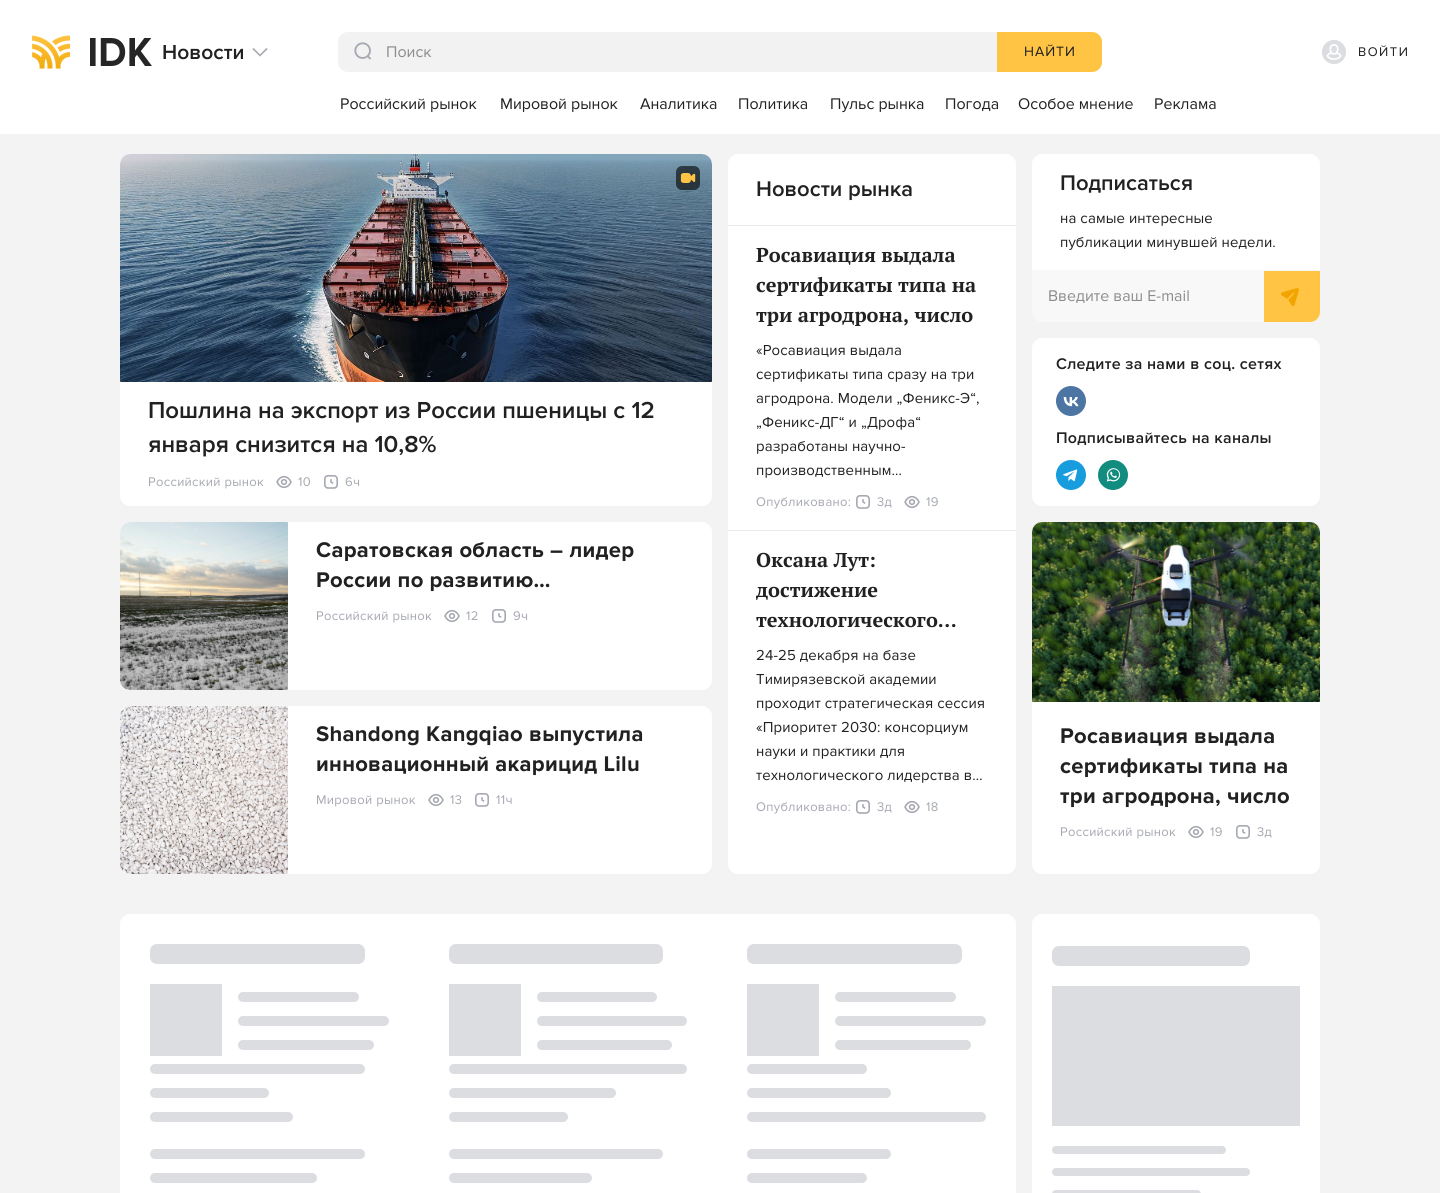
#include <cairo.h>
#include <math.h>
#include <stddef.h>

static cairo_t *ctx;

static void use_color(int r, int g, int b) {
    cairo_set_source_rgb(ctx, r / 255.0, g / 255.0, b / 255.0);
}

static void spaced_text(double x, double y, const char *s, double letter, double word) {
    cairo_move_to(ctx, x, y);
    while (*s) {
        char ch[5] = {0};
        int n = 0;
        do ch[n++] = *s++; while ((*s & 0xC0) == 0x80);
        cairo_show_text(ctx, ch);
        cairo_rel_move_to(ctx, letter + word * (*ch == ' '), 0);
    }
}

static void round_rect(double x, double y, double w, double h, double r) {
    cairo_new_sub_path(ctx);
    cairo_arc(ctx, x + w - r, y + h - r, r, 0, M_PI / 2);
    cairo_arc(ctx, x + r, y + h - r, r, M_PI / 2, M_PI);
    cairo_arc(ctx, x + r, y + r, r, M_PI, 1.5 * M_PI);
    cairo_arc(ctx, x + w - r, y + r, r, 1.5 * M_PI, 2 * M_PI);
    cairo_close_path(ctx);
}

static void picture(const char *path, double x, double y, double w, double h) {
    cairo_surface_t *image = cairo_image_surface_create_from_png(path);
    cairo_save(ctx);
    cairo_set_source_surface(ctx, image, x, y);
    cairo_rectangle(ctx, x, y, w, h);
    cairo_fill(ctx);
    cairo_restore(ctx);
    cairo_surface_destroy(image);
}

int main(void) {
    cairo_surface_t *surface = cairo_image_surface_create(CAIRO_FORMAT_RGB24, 1440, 1193);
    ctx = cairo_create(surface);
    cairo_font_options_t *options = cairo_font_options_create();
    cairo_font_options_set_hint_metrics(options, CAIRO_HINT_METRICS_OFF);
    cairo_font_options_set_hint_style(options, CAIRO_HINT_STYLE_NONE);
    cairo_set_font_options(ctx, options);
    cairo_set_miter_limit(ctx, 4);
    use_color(243, 243, 243);
    cairo_paint(ctx);
    use_color(255, 255, 255);
    cairo_rectangle(ctx, 0, 0, 1440, 134);
    cairo_fill(ctx);
    picture("img1.png", 32, 35, 38, 34);
    picture("img2.png", 90, 38, 62, 28);
    cairo_select_font_face(ctx, "Proxima Nova SemiBold", CAIRO_FONT_SLANT_NORMAL, CAIRO_FONT_WEIGHT_NORMAL);
    cairo_set_font_size(ctx, 21);
    use_color(33, 33, 33);
    cairo_move_to(ctx, 162, 59);
    cairo_show_text(ctx, "Новости");
    picture("img3.png", 252, 48, 16, 9);
    use_color(242, 242, 242);
    round_rect(338, 32, 764, 40, 10);
    cairo_fill(ctx);
    picture("img4.png", 354, 42, 18, 18);
    cairo_select_font_face(ctx, "Proxima Nova", CAIRO_FONT_SLANT_NORMAL, CAIRO_FONT_WEIGHT_NORMAL);
    cairo_set_font_size(ctx, 16);
    use_color(140, 140, 140);
    cairo_move_to(ctx, 386, 57);
    cairo_show_text(ctx, "Поиск");
    use_color(255, 196, 67);
    cairo_new_path(ctx);
    cairo_move_to(ctx, 997, 32);
    cairo_line_to(ctx, 1092, 32);
    cairo_curve_to(ctx, 1097.5, 32, 1102, 36.5, 1102, 42);
    cairo_line_to(ctx, 1102, 62);
    cairo_curve_to(ctx, 1102, 67.5, 1097.5, 72, 1092, 72);
    cairo_line_to(ctx, 997, 72);
    cairo_close_path(ctx);
    cairo_fill(ctx);
    cairo_set_font_size(ctx, 14);
    use_color(33, 33, 33);
    spaced_text(1024, 56, "НАЙТИ", 1, 0);
    use_color(219, 221, 224);
    cairo_new_path(ctx);
    cairo_arc(ctx, 1334, 52, 12, 0, 2 * M_PI);
    cairo_fill(ctx);
    picture("img5.png", 1322, 40, 24, 24);
    cairo_set_font_size(ctx, 13);
    use_color(33, 33, 33);
    spaced_text(1358, 56, "ВОЙТИ", 1.5, 0);
    cairo_set_font_size(ctx, 16);
    cairo_move_to(ctx, 340, 109);
    cairo_show_text(ctx, "Российский рынок");
    cairo_move_to(ctx, 500, 109);
    cairo_show_text(ctx, "Мировой рынок");
    cairo_move_to(ctx, 640, 109);
    cairo_show_text(ctx, "Аналитика");
    cairo_move_to(ctx, 738, 109);
    cairo_show_text(ctx, "Политика");
    cairo_move_to(ctx, 830, 109);
    cairo_show_text(ctx, "Пульс рынка");
    cairo_move_to(ctx, 945, 109);
    cairo_show_text(ctx, "Погода");
    cairo_move_to(ctx, 1018, 109);
    cairo_show_text(ctx, "Особое мнение");
    cairo_move_to(ctx, 1154, 109);
    cairo_show_text(ctx, "Реклама");
    use_color(255, 255, 255);
    round_rect(728, 154, 288, 720, 10);
    cairo_fill(ctx);
    use_color(232, 234, 240);
    cairo_rectangle(ctx, 728, 225, 288, 1);
    cairo_fill(ctx);
    cairo_select_font_face(ctx, "Proxima Nova SemiBold", CAIRO_FONT_SLANT_NORMAL, CAIRO_FONT_WEIGHT_NORMAL);
    cairo_set_font_size(ctx, 22);
    use_color(33, 33, 33);
    cairo_move_to(ctx, 756, 196);
    cairo_show_text(ctx, "Новости рынка");
    use_color(232, 234, 240);
    cairo_rectangle(ctx, 728, 530, 288, 1);
    cairo_fill(ctx);
    cairo_select_font_face(ctx, "PT Serif", CAIRO_FONT_SLANT_NORMAL, CAIRO_FONT_WEIGHT_BOLD);
    cairo_set_font_size(ctx, 20);
    use_color(33, 33, 33);
    cairo_move_to(ctx, 756, 262);
    cairo_show_text(ctx, "Росавиация выдала");
    cairo_move_to(ctx, 756, 292);
    cairo_show_text(ctx, "сертификаты типа на");
    cairo_move_to(ctx, 756, 322);
    cairo_show_text(ctx, "три агродрона, число");
    cairo_select_font_face(ctx, "Proxima Nova", CAIRO_FONT_SLANT_NORMAL, CAIRO_FONT_WEIGHT_NORMAL);
    cairo_set_font_size(ctx, 15);
    spaced_text(756, 355, "«Росавиация выдала", 0.1, 0);
    spaced_text(756, 379, "сертификаты типа сразу на три", 0.1, 0);
    spaced_text(756, 403, "агродрона. Модели „Феникс-Э“,", 0.1, 0);
    spaced_text(756, 427, "„Феникс-ДГ“ и „Дрофа“", 0.1, 0);
    spaced_text(756, 451, "разработаны научно-", 0.1, 0);
    spaced_text(756, 475, "производственным…", 0.1, 0);
    cairo_set_font_size(ctx, 13);
    use_color(166, 169, 177);
    spaced_text(756, 506, "Опубликовано:", 0.3, 0);
    picture("img6.png", 856, 495, 14, 14);
    spaced_text(877, 506, "3д", 0.3, 0);
    picture("img7.png", 904, 495, 16, 14);
    spaced_text(926, 506, "19", 0.3, 0);
    cairo_select_font_face(ctx, "PT Serif", CAIRO_FONT_SLANT_NORMAL, CAIRO_FONT_WEIGHT_BOLD);
    cairo_set_font_size(ctx, 20);
    use_color(33, 33, 33);
    cairo_move_to(ctx, 756, 567);
    cairo_show_text(ctx, "Оксана Лут:");
    cairo_move_to(ctx, 756, 597);
    cairo_show_text(ctx, "достижение");
    cairo_move_to(ctx, 756, 627);
    cairo_show_text(ctx, "технологического…");
    cairo_select_font_face(ctx, "Proxima Nova", CAIRO_FONT_SLANT_NORMAL, CAIRO_FONT_WEIGHT_NORMAL);
    cairo_set_font_size(ctx, 15);
    spaced_text(756, 660, "24-25 декабря на базе", 0.1, 0);
    spaced_text(756, 684, "Тимирязевской академии", 0.1, 0);
    spaced_text(756, 708, "проходит стратегическая сессия", 0.1, 0);
    spaced_text(756, 732, "«Приоритет 2030: консорциум", 0.1, 0);
    spaced_text(756, 756, "науки и практики для", 0.1, 0);
    spaced_text(756, 780, "технологического лидерства в…", 0.1, 0);
    cairo_set_font_size(ctx, 13);
    use_color(166, 169, 177);
    spaced_text(756, 811, "Опубликовано:", 0.3, 0);
    picture("img6.png", 856, 800, 14, 14);
    spaced_text(877, 811, "3д", 0.3, 0);
    picture("img7.png", 904, 800, 16, 14);
    spaced_text(926, 811, "18", 0.3, 0);
    use_color(255, 255, 255);
    round_rect(1032, 154, 288, 168, 10);
    cairo_fill(ctx);
    cairo_select_font_face(ctx, "Proxima Nova SemiBold", CAIRO_FONT_SLANT_NORMAL, CAIRO_FONT_WEIGHT_NORMAL);
    cairo_set_font_size(ctx, 22);
    use_color(33, 33, 33);
    cairo_move_to(ctx, 1060, 190);
    cairo_show_text(ctx, "Подписаться");
    cairo_select_font_face(ctx, "Proxima Nova", CAIRO_FONT_SLANT_NORMAL, CAIRO_FONT_WEIGHT_NORMAL);
    cairo_set_font_size(ctx, 15);
    spaced_text(1060, 223, "на самые интересные", 0.1, 0);
    spaced_text(1060, 247, "публикации минувшей недели.", 0.1, 0);
    cairo_set_source_rgba(ctx, 0.651, 0.663, 0.694, 0.08);
    cairo_new_path(ctx);
    cairo_move_to(ctx, 1032, 270);
    cairo_line_to(ctx, 1320, 270);
    cairo_line_to(ctx, 1320, 312);
    cairo_curve_to(ctx, 1320, 317.5, 1315.5, 322, 1310, 322);
    cairo_line_to(ctx, 1042, 322);
    cairo_curve_to(ctx, 1036.5, 322, 1032, 317.5, 1032, 312);
    cairo_close_path(ctx);
    cairo_fill(ctx);
    cairo_set_font_size(ctx, 16);
    use_color(140, 140, 140);
    cairo_move_to(ctx, 1048, 301);
    cairo_show_text(ctx, "Введите ваш E-mail");
    use_color(255, 196, 67);
    cairo_new_path(ctx);
    cairo_move_to(ctx, 1264, 271);
    cairo_line_to(ctx, 1320, 271);
    cairo_line_to(ctx, 1320, 312);
    cairo_curve_to(ctx, 1320, 317.5, 1315.5, 322, 1310, 322);
    cairo_line_to(ctx, 1264, 322);
    cairo_close_path(ctx);
    cairo_fill(ctx);
    picture("img8.png", 1281, 288, 18, 18);
    use_color(255, 255, 255);
    round_rect(120, 154, 592, 352, 10);
    cairo_fill(ctx);
    picture("img9.png", 120, 154, 592, 228);
    cairo_set_source_rgba(ctx, 0, 0, 0, 0.6);
    round_rect(676, 166, 24, 24, 6);
    cairo_fill(ctx);
    picture("img10.png", 680, 173, 16, 10);
    cairo_select_font_face(ctx, "Proxima Nova SemiBold", CAIRO_FONT_SLANT_NORMAL, CAIRO_FONT_WEIGHT_NORMAL);
    cairo_set_font_size(ctx, 24);
    use_color(33, 33, 33);
    cairo_move_to(ctx, 148, 418);
    cairo_show_text(ctx, "Пошлина на экспорт из России пшеницы с 12");
    cairo_move_to(ctx, 148, 452);
    cairo_show_text(ctx, "января снизится на 10,8%");
    cairo_select_font_face(ctx, "Proxima Nova", CAIRO_FONT_SLANT_NORMAL, CAIRO_FONT_WEIGHT_NORMAL);
    cairo_set_font_size(ctx, 13);
    use_color(166, 169, 177);
    spaced_text(148, 486, "Российский рынок", 0.3, 0);
    picture("img7.png", 276, 475, 16, 14);
    spaced_text(298, 486, "10", 0.3, 0);
    picture("img6.png", 324, 475, 14, 14);
    spaced_text(345, 486, "6ч", 0.3, 0);
    use_color(255, 255, 255);
    round_rect(1032, 338, 288, 168, 10);
    cairo_fill(ctx);
    cairo_select_font_face(ctx, "Proxima Nova SemiBold", CAIRO_FONT_SLANT_NORMAL, CAIRO_FONT_WEIGHT_NORMAL);
    cairo_set_font_size(ctx, 16);
    use_color(33, 33, 33);
    spaced_text(1056, 369, "Следите за нами в соц. сетях", 0.3, 0);
    use_color(77, 117, 163);
    cairo_new_path(ctx);
    cairo_arc(ctx, 1071, 401, 15, 0, 2 * M_PI);
    cairo_fill(ctx);
    picture("img11.png", 1063, 397, 16, 10);
    use_color(33, 33, 33);
    spaced_text(1056, 443, "Подписывайтесь на каналы", 0.3, 0);
    use_color(23, 156, 222);
    cairo_new_path(ctx);
    cairo_arc(ctx, 1071, 475, 15, 0, 2 * M_PI);
    cairo_fill(ctx);
    picture("img12.png", 1063, 469, 15, 13);
    use_color(18, 140, 126);
    cairo_arc(ctx, 1113, 475, 15, 0, 2 * M_PI);
    cairo_fill(ctx);
    picture("img13.png", 1106, 468, 15, 14);
    use_color(255, 255, 255);
    round_rect(120, 522, 592, 168, 10);
    cairo_fill(ctx);
    picture("img14.png", 120, 522, 168, 168);
    cairo_select_font_face(ctx, "Proxima Nova", CAIRO_FONT_SLANT_NORMAL, CAIRO_FONT_WEIGHT_BOLD);
    cairo_set_font_size(ctx, 22);
    use_color(33, 33, 33);
    spaced_text(316, 557, "Саратовская область – лидер", 0.3, 0);
    spaced_text(316, 587, "России по развитию…", 0.3, 0);
    cairo_select_font_face(ctx, "Proxima Nova", CAIRO_FONT_SLANT_NORMAL, CAIRO_FONT_WEIGHT_NORMAL);
    cairo_set_font_size(ctx, 13);
    use_color(166, 169, 177);
    spaced_text(316, 620, "Российский рынок", 0.3, 0);
    picture("img7.png", 444, 609, 16, 14);
    spaced_text(466, 620, "12", 0.3, 0);
    picture("img6.png", 492, 609, 14, 14);
    spaced_text(513, 620, "9ч", 0.3, 0);
    use_color(255, 255, 255);
    round_rect(120, 706, 592, 168, 10);
    cairo_fill(ctx);
    picture("img15.png", 120, 706, 168, 168);
    cairo_select_font_face(ctx, "Proxima Nova", CAIRO_FONT_SLANT_NORMAL, CAIRO_FONT_WEIGHT_BOLD);
    cairo_set_font_size(ctx, 22);
    use_color(33, 33, 33);
    spaced_text(316, 741, "Shandong Kangqiao выпустила", 0.3, 0);
    spaced_text(316, 771, "инновационный акарицид Lilu", 0.3, 0);
    cairo_select_font_face(ctx, "Proxima Nova", CAIRO_FONT_SLANT_NORMAL, CAIRO_FONT_WEIGHT_NORMAL);
    cairo_set_font_size(ctx, 13);
    use_color(166, 169, 177);
    spaced_text(316, 804, "Мировой рынок", 0.3, 0);
    picture("img7.png", 428, 793, 16, 14);
    spaced_text(450, 804, "13", 0.3, 0);
    picture("img6.png", 475, 793, 14, 14);
    spaced_text(496, 804, "11ч", 0.3, 0);
    use_color(255, 255, 255);
    round_rect(1032, 522, 288, 352, 10);
    cairo_fill(ctx);
    picture("img16.png", 1032, 522, 288, 180);
    cairo_select_font_face(ctx, "Proxima Nova", CAIRO_FONT_SLANT_NORMAL, CAIRO_FONT_WEIGHT_BOLD);
    cairo_set_font_size(ctx, 22);
    use_color(33, 33, 33);
    spaced_text(1060, 743, "Росавиация выдала", 0.3, 0);
    spaced_text(1060, 773, "сертификаты типа на", 0.3, 0);
    spaced_text(1060, 803, "три агродрона, число", 0.3, 0);
    cairo_select_font_face(ctx, "Proxima Nova", CAIRO_FONT_SLANT_NORMAL, CAIRO_FONT_WEIGHT_NORMAL);
    cairo_set_font_size(ctx, 13);
    use_color(166, 169, 177);
    spaced_text(1060, 836, "Российский рынок", 0.3, 0);
    picture("img7.png", 1188, 825, 16, 14);
    spaced_text(1210, 836, "19", 0.3, 0);
    picture("img6.png", 1236, 825, 14, 14);
    spaced_text(1257, 836, "3д", 0.3, 0);
    use_color(255, 255, 255);
    round_rect(120, 914, 896, 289, 10);
    cairo_fill(ctx);
    use_color(219, 221, 224);
    round_rect(150, 944, 215, 20, 7);
    cairo_fill(ctx);
    cairo_rectangle(ctx, 150, 984, 72, 72);
    cairo_fill(ctx);
    round_rect(238, 992, 121, 10, 5);
    cairo_fill(ctx);
    round_rect(238, 1016, 151, 10, 5);
    cairo_fill(ctx);
    round_rect(238, 1040, 136, 10, 5);
    cairo_fill(ctx);
    round_rect(150, 1064, 215, 10, 5);
    cairo_fill(ctx);
    round_rect(150, 1088, 119, 10, 5);
    cairo_fill(ctx);
    round_rect(150, 1112, 143, 10, 5);
    cairo_fill(ctx);
    round_rect(150, 1149, 215, 10, 5);
    cairo_fill(ctx);
    round_rect(150, 1173, 167, 10, 5);
    cairo_fill(ctx);
    round_rect(449, 944, 214, 20, 7);
    cairo_fill(ctx);
    cairo_rectangle(ctx, 449, 984, 72, 72);
    cairo_fill(ctx);
    round_rect(537, 992, 120, 10, 5);
    cairo_fill(ctx);
    round_rect(537, 1016, 150, 10, 5);
    cairo_fill(ctx);
    round_rect(537, 1040, 135, 10, 5);
    cairo_fill(ctx);
    round_rect(449, 1064, 238, 10, 5);
    cairo_fill(ctx);
    round_rect(449, 1088, 167, 10, 5);
    cairo_fill(ctx);
    round_rect(449, 1112, 119, 10, 5);
    cairo_fill(ctx);
    round_rect(449, 1149, 214, 10, 5);
    cairo_fill(ctx);
    round_rect(449, 1173, 143, 10, 5);
    cairo_fill(ctx);
    round_rect(747, 944, 215, 20, 7);
    cairo_fill(ctx);
    cairo_rectangle(ctx, 747, 984, 72, 72);
    cairo_fill(ctx);
    round_rect(835, 992, 121, 10, 5);
    cairo_fill(ctx);
    round_rect(835, 1016, 151, 10, 5);
    cairo_fill(ctx);
    round_rect(835, 1040, 136, 10, 5);
    cairo_fill(ctx);
    round_rect(747, 1064, 120, 10, 5);
    cairo_fill(ctx);
    round_rect(747, 1088, 144, 10, 5);
    cairo_fill(ctx);
    round_rect(747, 1112, 239, 10, 5);
    cairo_fill(ctx);
    round_rect(747, 1149, 144, 10, 5);
    cairo_fill(ctx);
    round_rect(747, 1173, 120, 10, 5);
    cairo_fill(ctx);
    use_color(255, 255, 255);
    round_rect(1032, 914, 288, 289, 10);
    cairo_fill(ctx);
    use_color(219, 221, 224);
    round_rect(1052, 946, 198, 20, 7);
    cairo_fill(ctx);
    cairo_rectangle(ctx, 1052, 986, 248, 140);
    cairo_fill(ctx);
    round_rect(1052, 1146, 174, 8, 4);
    cairo_fill(ctx);
    round_rect(1052, 1168, 198, 8, 4);
    cairo_fill(ctx);
    round_rect(1052, 1190, 149, 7, 4);
    cairo_fill(ctx);
    cairo_surface_write_to_png(surface, "result.png");
    cairo_font_options_destroy(options);
    cairo_destroy(ctx);
    cairo_surface_destroy(surface);
    return 0;
}
